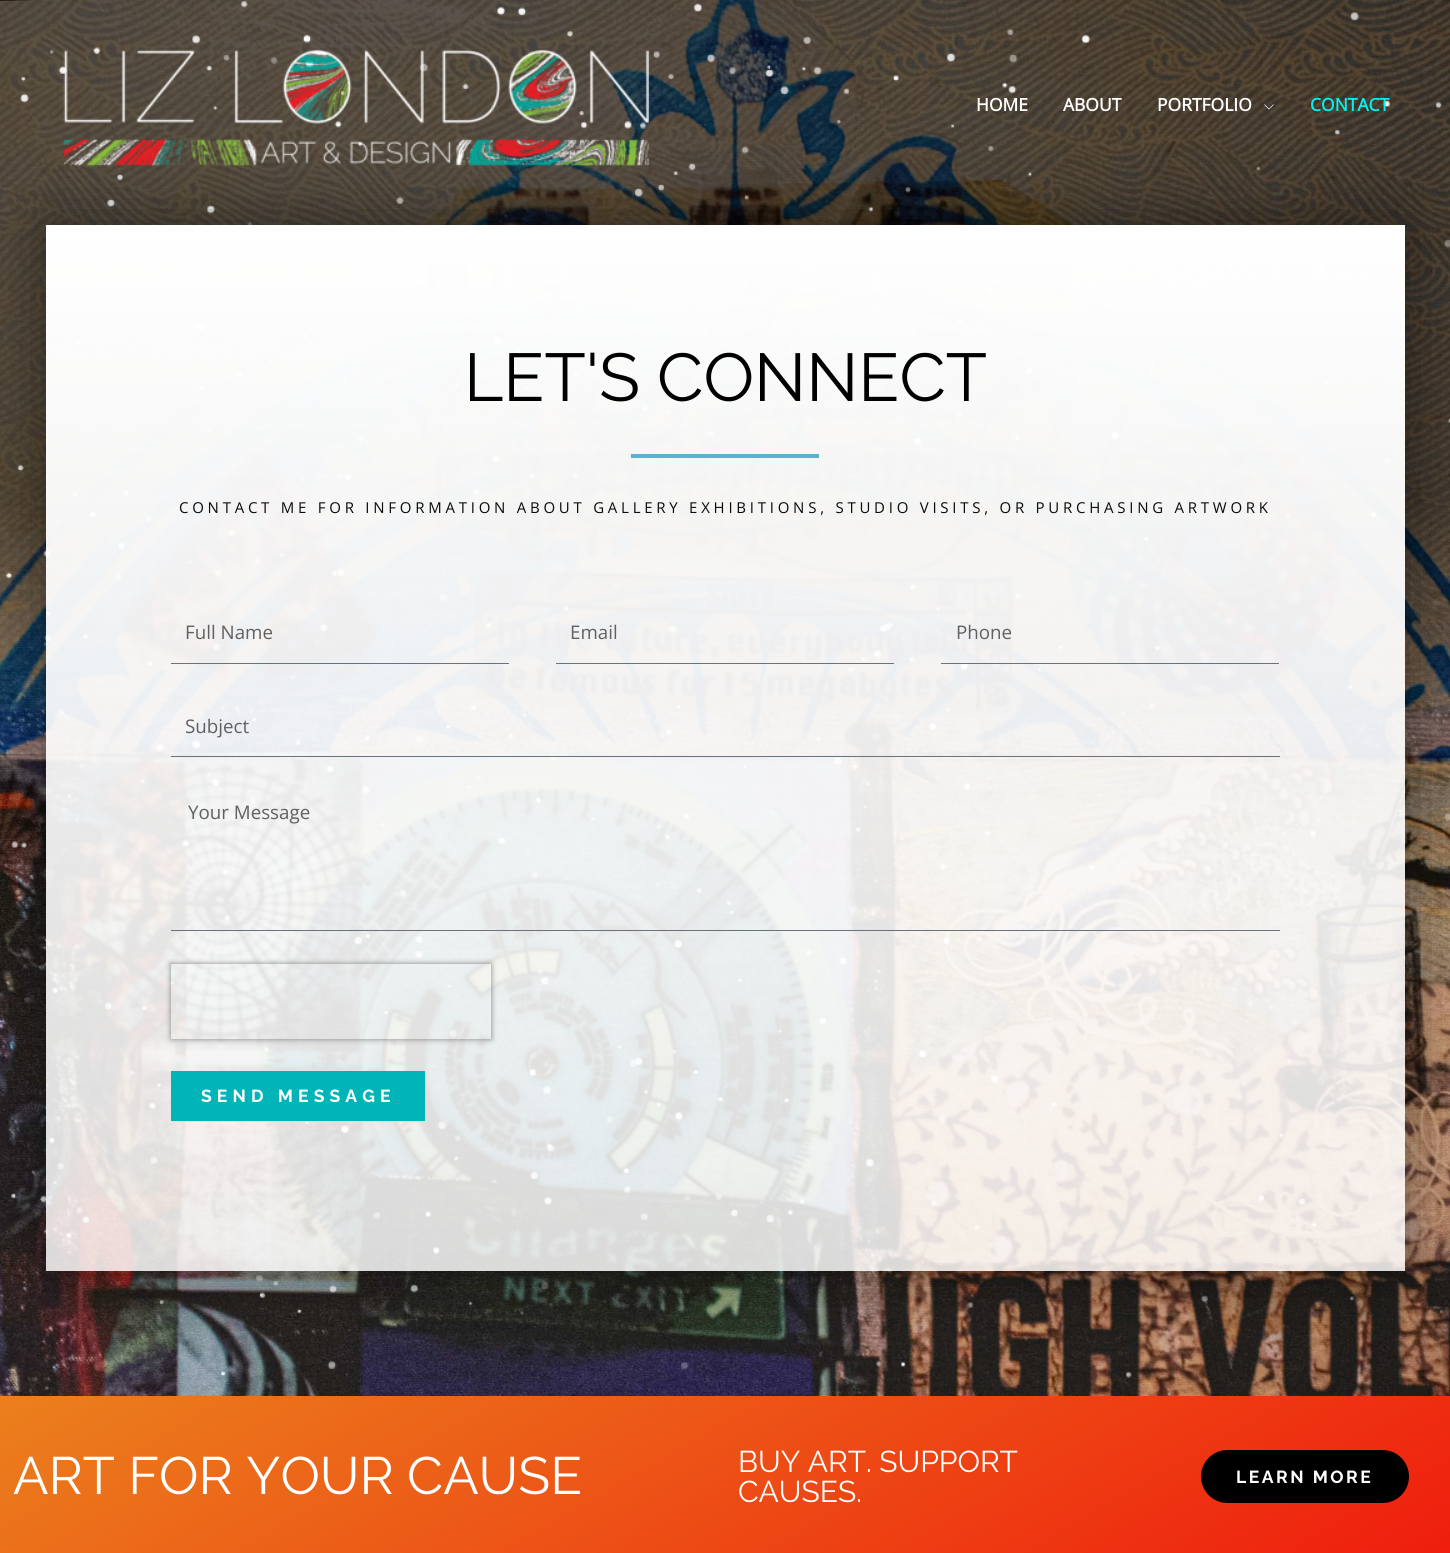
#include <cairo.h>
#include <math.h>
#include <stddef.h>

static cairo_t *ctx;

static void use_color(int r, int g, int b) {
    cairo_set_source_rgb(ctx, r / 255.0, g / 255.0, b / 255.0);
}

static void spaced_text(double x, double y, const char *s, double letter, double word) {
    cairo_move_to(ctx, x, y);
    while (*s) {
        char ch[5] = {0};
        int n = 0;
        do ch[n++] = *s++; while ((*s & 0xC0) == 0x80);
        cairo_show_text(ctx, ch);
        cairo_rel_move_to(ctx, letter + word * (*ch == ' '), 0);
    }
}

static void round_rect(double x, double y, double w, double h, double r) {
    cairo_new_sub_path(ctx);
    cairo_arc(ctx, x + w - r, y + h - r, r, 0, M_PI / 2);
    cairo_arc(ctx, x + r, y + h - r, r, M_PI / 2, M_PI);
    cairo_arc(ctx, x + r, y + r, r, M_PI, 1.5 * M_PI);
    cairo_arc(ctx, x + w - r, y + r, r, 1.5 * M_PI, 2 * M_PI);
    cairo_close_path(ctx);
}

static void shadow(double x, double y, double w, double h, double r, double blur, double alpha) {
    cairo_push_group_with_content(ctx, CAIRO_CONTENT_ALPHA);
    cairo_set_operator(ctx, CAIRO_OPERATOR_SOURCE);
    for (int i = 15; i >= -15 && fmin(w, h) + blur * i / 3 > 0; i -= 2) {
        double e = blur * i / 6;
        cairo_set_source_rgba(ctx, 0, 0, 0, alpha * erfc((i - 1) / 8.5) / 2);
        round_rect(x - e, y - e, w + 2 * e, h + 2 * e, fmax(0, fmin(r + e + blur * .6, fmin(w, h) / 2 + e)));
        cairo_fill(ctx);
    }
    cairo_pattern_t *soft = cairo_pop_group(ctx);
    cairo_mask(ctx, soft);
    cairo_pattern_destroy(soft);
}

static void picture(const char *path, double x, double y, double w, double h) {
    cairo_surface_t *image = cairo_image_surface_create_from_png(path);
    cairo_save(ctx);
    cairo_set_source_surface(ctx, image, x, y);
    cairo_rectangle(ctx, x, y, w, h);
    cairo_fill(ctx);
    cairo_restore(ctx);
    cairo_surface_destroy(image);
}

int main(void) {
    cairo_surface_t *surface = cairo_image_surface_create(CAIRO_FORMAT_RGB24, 1450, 1553);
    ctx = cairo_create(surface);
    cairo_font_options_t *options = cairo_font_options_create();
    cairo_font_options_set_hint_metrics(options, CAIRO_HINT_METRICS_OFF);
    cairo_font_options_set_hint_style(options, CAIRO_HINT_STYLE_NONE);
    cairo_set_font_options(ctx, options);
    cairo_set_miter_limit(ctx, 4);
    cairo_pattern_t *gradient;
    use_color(255, 255, 255);
    cairo_paint(ctx);
    picture("img3.png", 0, 0, 1450, 1396);
    picture("img4.png", 6, 1, 1444, 1395);
    cairo_save(ctx);
    cairo_set_fill_rule(ctx, CAIRO_FILL_RULE_EVEN_ODD);
    cairo_new_path(ctx);
    cairo_move_to(ctx, 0, 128);
    cairo_line_to(ctx, 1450, 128);
    cairo_line_to(ctx, 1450, 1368);
    cairo_line_to(ctx, 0, 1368);
    cairo_close_path(ctx);
    cairo_move_to(ctx, 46, 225);
    cairo_line_to(ctx, 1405, 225);
    cairo_line_to(ctx, 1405, 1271);
    cairo_line_to(ctx, 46, 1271);
    cairo_close_path(ctx);
    cairo_clip(ctx);
    use_color(0, 0, 0);
    shadow(46, 225, 1359, 1046, 0, 32, 0.5);
    cairo_restore(ctx);
    picture("img1.png", 62, 49, 588, 118);
    cairo_select_font_face(ctx, "Open Sans", CAIRO_FONT_SLANT_NORMAL, CAIRO_FONT_WEIGHT_BOLD);
    cairo_set_font_size(ctx, 17.5);
    use_color(255, 255, 255);
    cairo_move_to(ctx, 976, 111);
    cairo_show_text(ctx, "HOME");
    cairo_move_to(ctx, 1063, 111);
    cairo_show_text(ctx, "ABOUT");
    cairo_move_to(ctx, 1157, 111);
    cairo_show_text(ctx, "PORTFOLIO");
    picture("img2.png", 1264, 104, 10, 6);
    use_color(0, 244, 244);
    cairo_move_to(ctx, 1310, 111);
    cairo_show_text(ctx, "CONTACT");
    gradient = cairo_pattern_create_linear(726, 225, 726, 1271);
    cairo_pattern_add_color_stop_rgba(gradient, 0, 1, 1, 1, 1);
    cairo_pattern_add_color_stop_rgba(gradient, 1, 1, 1, 1, 0.83);
    cairo_set_source(ctx, gradient);
    cairo_pattern_destroy(gradient);
    cairo_rectangle(ctx, 46, 225, 1359, 1046);
    cairo_fill(ctx);
    cairo_select_font_face(ctx, "Raleway", CAIRO_FONT_SLANT_NORMAL, CAIRO_FONT_WEIGHT_NORMAL);
    cairo_set_font_size(ctx, 67.5);
    use_color(0, 0, 0);
    cairo_move_to(ctx, 464, 401);
    cairo_show_text(ctx, "LET'S CONNECT");
    use_color(92, 177, 205);
    cairo_rectangle(ctx, 631, 454, 188, 4);
    cairo_fill(ctx);
    cairo_select_font_face(ctx, "Open Sans", CAIRO_FONT_SLANT_NORMAL, CAIRO_FONT_WEIGHT_NORMAL);
    cairo_set_font_size(ctx, 15);
    use_color(11, 11, 12);
    spaced_text(179, 513, "CONTACT ME FOR INFORMATION ABOUT GALLERY EXHIBITIONS, STUDIO VISITS, OR PURCHASING ARTWORK", 3.75, 0);
    use_color(105, 114, 125);
    cairo_rectangle(ctx, 171, 663, 338, 1);
    cairo_fill(ctx);
    cairo_set_font_size(ctx, 18.75);
    use_color(97, 96, 97);
    cairo_move_to(ctx, 185, 639);
    cairo_show_text(ctx, "Full Name");
    use_color(105, 114, 125);
    cairo_rectangle(ctx, 556, 663, 338, 1);
    cairo_fill(ctx);
    use_color(97, 96, 97);
    cairo_move_to(ctx, 570, 639);
    cairo_show_text(ctx, "Email");
    use_color(105, 114, 125);
    cairo_rectangle(ctx, 941, 663, 338, 1);
    cairo_fill(ctx);
    use_color(97, 96, 97);
    cairo_move_to(ctx, 956, 639);
    cairo_show_text(ctx, "Phone");
    use_color(105, 114, 125);
    cairo_rectangle(ctx, 171, 756, 1109, 1);
    cairo_fill(ctx);
    use_color(97, 96, 97);
    cairo_move_to(ctx, 185, 733);
    cairo_show_text(ctx, "Subject");
    use_color(105, 114, 125);
    cairo_rectangle(ctx, 171, 930, 1109, 1);
    cairo_fill(ctx);
    use_color(97, 96, 97);
    cairo_move_to(ctx, 188, 819);
    cairo_show_text(ctx, "Your Message");
    cairo_save(ctx);
    cairo_set_fill_rule(ctx, CAIRO_FILL_RULE_EVEN_ODD);
    cairo_new_path(ctx);
    cairo_move_to(ctx, 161, 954);
    cairo_line_to(ctx, 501, 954);
    cairo_line_to(ctx, 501, 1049);
    cairo_line_to(ctx, 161, 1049);
    cairo_close_path(ctx);
    cairo_move_to(ctx, 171, 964);
    cairo_line_to(ctx, 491, 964);
    cairo_line_to(ctx, 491, 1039);
    cairo_line_to(ctx, 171, 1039);
    cairo_close_path(ctx);
    cairo_clip(ctx);
    use_color(128, 128, 128);
    shadow(171, 964, 320, 75, 0, 3, 1);
    cairo_restore(ctx);
    use_color(0, 180, 183);
    cairo_rectangle(ctx, 171, 1071, 254, 50);
    cairo_fill(ctx);
    cairo_select_font_face(ctx, "Raleway", CAIRO_FONT_SLANT_NORMAL, CAIRO_FONT_WEIGHT_BOLD);
    cairo_set_font_size(ctx, 17.5);
    use_color(255, 255, 255);
    spaced_text(201, 1102, "SEND MESSAGE", 5.1, 0);
    gradient = cairo_pattern_create_linear(941, 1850, 423, 953);
    cairo_pattern_add_color_stop_rgba(gradient, 0, 0.937, 0.114, 0.055, 1);
    cairo_pattern_add_color_stop_rgba(gradient, 1, 0.918, 0.58, 0.125, 1);
    cairo_set_source(ctx, gradient);
    cairo_pattern_destroy(gradient);
    cairo_rectangle(ctx, 0, 1396, 1450, 157);
    cairo_fill(ctx);
    cairo_select_font_face(ctx, "Raleway", CAIRO_FONT_SLANT_NORMAL, CAIRO_FONT_WEIGHT_NORMAL);
    cairo_set_font_size(ctx, 52.5);
    use_color(255, 255, 255);
    cairo_move_to(ctx, 13, 1494);
    cairo_show_text(ctx, "ART FOR YOUR CAUSE");
    cairo_set_font_size(ctx, 30);
    cairo_move_to(ctx, 738, 1472);
    cairo_show_text(ctx, "BUY ART. SUPPORT");
    cairo_move_to(ctx, 738, 1502);
    cairo_show_text(ctx, "CAUSES.");
    use_color(0, 0, 0);
    round_rect(1201, 1450, 208, 53, 26.5);
    cairo_fill(ctx);
    cairo_select_font_face(ctx, "Raleway", CAIRO_FONT_SLANT_NORMAL, CAIRO_FONT_WEIGHT_BOLD);
    cairo_set_font_size(ctx, 17.5);
    use_color(255, 255, 255);
    spaced_text(1236, 1483, "LEARN MORE", 2.5, 0);
    cairo_surface_write_to_png(surface, "result.png");
    cairo_font_options_destroy(options);
    cairo_destroy(ctx);
    cairo_surface_destroy(surface);
    return 0;
}
